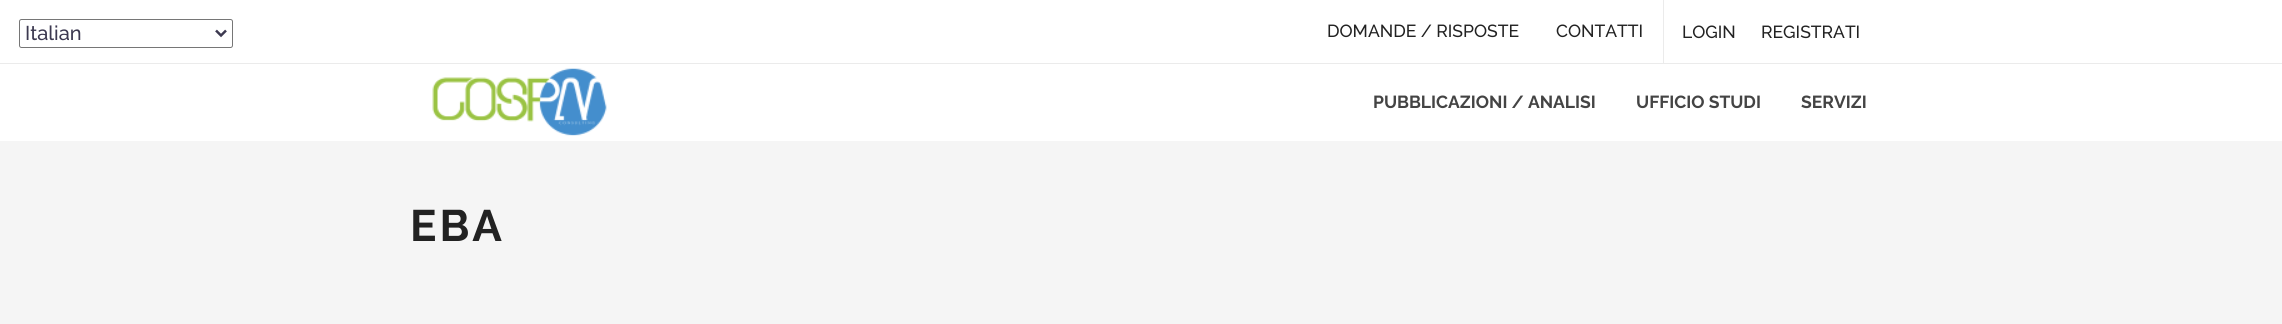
#include <cairo.h>
#include <math.h>
#include <stddef.h>

static cairo_t *ctx;

static void use_color(int r, int g, int b) {
    cairo_set_source_rgb(ctx, r / 255.0, g / 255.0, b / 255.0);
}

static void spaced_text(double x, double y, const char *s, double letter, double word) {
    cairo_move_to(ctx, x, y);
    while (*s) {
        char ch[5] = {0};
        int n = 0;
        do ch[n++] = *s++; while ((*s & 0xC0) == 0x80);
        cairo_show_text(ctx, ch);
        cairo_rel_move_to(ctx, letter + word * (*ch == ' '), 0);
    }
}

static void round_rect(double x, double y, double w, double h, double r) {
    cairo_new_sub_path(ctx);
    cairo_arc(ctx, x + w - r, y + h - r, r, 0, M_PI / 2);
    cairo_arc(ctx, x + r, y + h - r, r, M_PI / 2, M_PI);
    cairo_arc(ctx, x + r, y + r, r, M_PI, 1.5 * M_PI);
    cairo_arc(ctx, x + w - r, y + r, r, 1.5 * M_PI, 2 * M_PI);
    cairo_close_path(ctx);
}

static void picture(const char *path, double x, double y, double w, double h) {
    cairo_surface_t *image = cairo_image_surface_create_from_png(path);
    cairo_save(ctx);
    cairo_set_source_surface(ctx, image, x, y);
    cairo_rectangle(ctx, x, y, w, h);
    cairo_fill(ctx);
    cairo_restore(ctx);
    cairo_surface_destroy(image);
}

int main(void) {
    cairo_surface_t *surface = cairo_image_surface_create(CAIRO_FORMAT_RGB24, 2282, 324);
    ctx = cairo_create(surface);
    cairo_font_options_t *options = cairo_font_options_create();
    cairo_font_options_set_hint_metrics(options, CAIRO_HINT_METRICS_OFF);
    cairo_font_options_set_hint_style(options, CAIRO_HINT_STYLE_NONE);
    cairo_set_font_options(ctx, options);
    cairo_set_miter_limit(ctx, 4);
    use_color(255, 255, 255);
    cairo_paint(ctx);
    round_rect(19.5, 19.5, 213, 28, 2);
    use_color(118, 118, 118);
    cairo_set_line_width(ctx, 1);
    cairo_stroke(ctx);
    cairo_new_path(ctx);
    cairo_move_to(ctx, 216, 30.5);
    cairo_line_to(ctx, 221, 35.5);
    cairo_line_to(ctx, 226, 30.5);
    use_color(60, 57, 80);
    cairo_set_line_width(ctx, 2.5);
    cairo_stroke(ctx);
    cairo_select_font_face(ctx, "Raleway Medium", CAIRO_FONT_SLANT_NORMAL, CAIRO_FONT_WEIGHT_NORMAL);
    cairo_set_font_size(ctx, 20);
    cairo_move_to(ctx, 25, 40);
    cairo_show_text(ctx, "Italian");
    cairo_set_font_size(ctx, 17.5);
    use_color(34, 34, 34);
    cairo_move_to(ctx, 1327, 37);
    cairo_show_text(ctx, "DOMANDE / RISPOSTE");
    cairo_move_to(ctx, 1556, 37);
    cairo_show_text(ctx, "CONTATTI");
    use_color(235, 235, 235);
    cairo_rectangle(ctx, 1663, 0, 1, 63);
    cairo_fill(ctx);
    use_color(34, 34, 34);
    cairo_move_to(ctx, 1682, 38);
    cairo_show_text(ctx, "LOGIN");
    cairo_move_to(ctx, 1761, 38);
    cairo_show_text(ctx, "REGISTRATI");
    use_color(235, 235, 235);
    cairo_rectangle(ctx, 0, 63, 2282, 1);
    cairo_fill(ctx);
    picture("img1.png", 432, 68, 175, 68);
    cairo_select_font_face(ctx, "Raleway", CAIRO_FONT_SLANT_NORMAL, CAIRO_FONT_WEIGHT_BOLD);
    use_color(68, 68, 68);
    cairo_move_to(ctx, 1373, 108);
    cairo_show_text(ctx, "PUBBLICAZIONI / ANALISI");
    cairo_move_to(ctx, 1636, 108);
    cairo_show_text(ctx, "UFFICIO STUDI");
    cairo_move_to(ctx, 1801, 108);
    cairo_show_text(ctx, "SERVIZI");
    use_color(245, 245, 245);
    cairo_rectangle(ctx, 0, 141, 2282, 183);
    cairo_fill(ctx);
    cairo_set_font_size(ctx, 44);
    use_color(34, 34, 34);
    spaced_text(410, 241, "EBA", 3, 0);
    cairo_surface_write_to_png(surface, "result.png");
    cairo_font_options_destroy(options);
    cairo_destroy(ctx);
    cairo_surface_destroy(surface);
    return 0;
}
